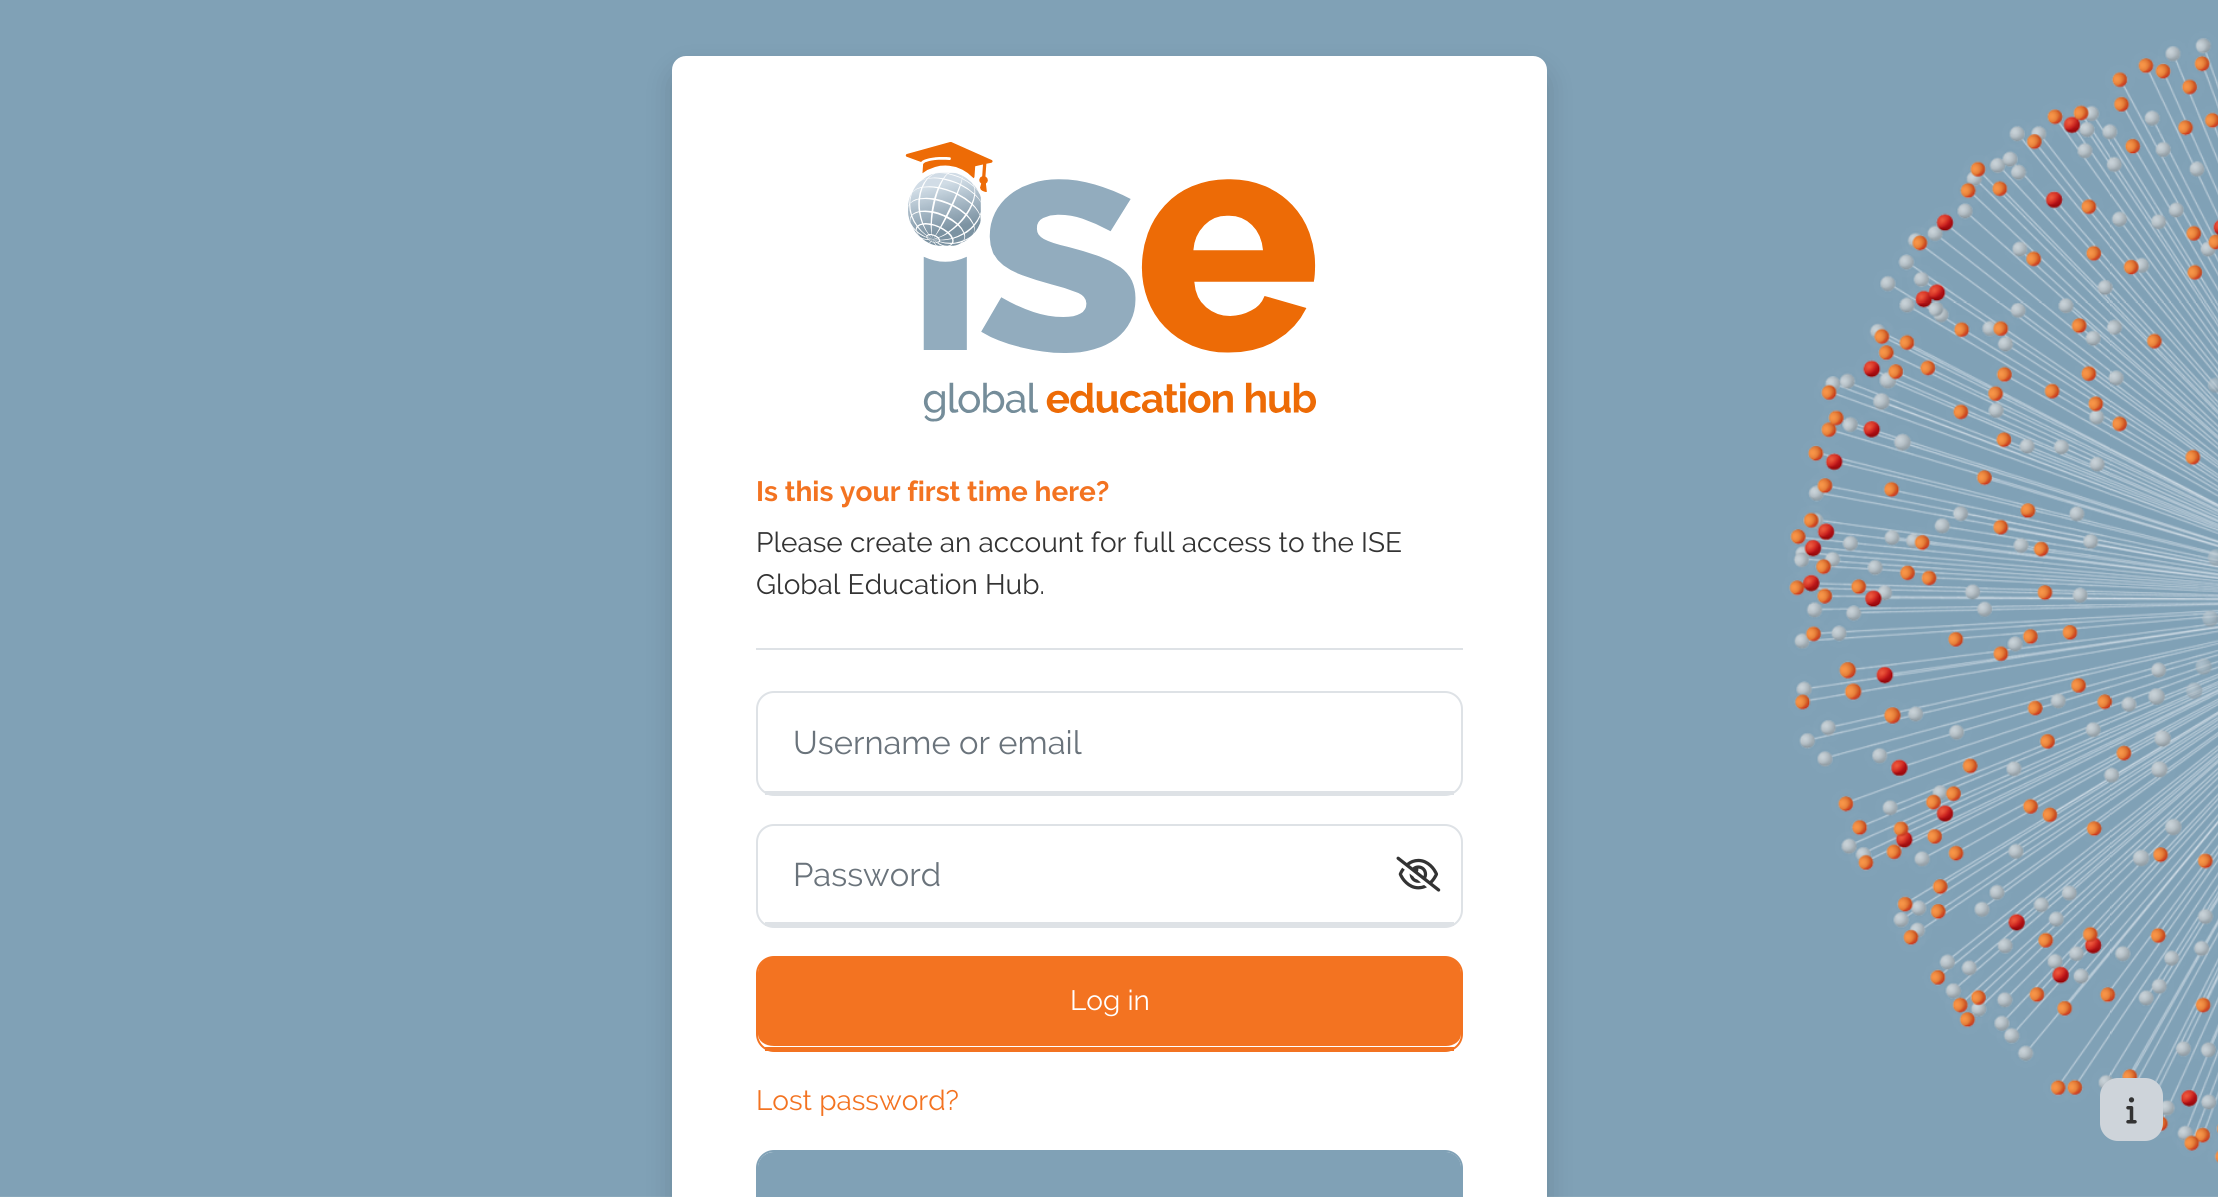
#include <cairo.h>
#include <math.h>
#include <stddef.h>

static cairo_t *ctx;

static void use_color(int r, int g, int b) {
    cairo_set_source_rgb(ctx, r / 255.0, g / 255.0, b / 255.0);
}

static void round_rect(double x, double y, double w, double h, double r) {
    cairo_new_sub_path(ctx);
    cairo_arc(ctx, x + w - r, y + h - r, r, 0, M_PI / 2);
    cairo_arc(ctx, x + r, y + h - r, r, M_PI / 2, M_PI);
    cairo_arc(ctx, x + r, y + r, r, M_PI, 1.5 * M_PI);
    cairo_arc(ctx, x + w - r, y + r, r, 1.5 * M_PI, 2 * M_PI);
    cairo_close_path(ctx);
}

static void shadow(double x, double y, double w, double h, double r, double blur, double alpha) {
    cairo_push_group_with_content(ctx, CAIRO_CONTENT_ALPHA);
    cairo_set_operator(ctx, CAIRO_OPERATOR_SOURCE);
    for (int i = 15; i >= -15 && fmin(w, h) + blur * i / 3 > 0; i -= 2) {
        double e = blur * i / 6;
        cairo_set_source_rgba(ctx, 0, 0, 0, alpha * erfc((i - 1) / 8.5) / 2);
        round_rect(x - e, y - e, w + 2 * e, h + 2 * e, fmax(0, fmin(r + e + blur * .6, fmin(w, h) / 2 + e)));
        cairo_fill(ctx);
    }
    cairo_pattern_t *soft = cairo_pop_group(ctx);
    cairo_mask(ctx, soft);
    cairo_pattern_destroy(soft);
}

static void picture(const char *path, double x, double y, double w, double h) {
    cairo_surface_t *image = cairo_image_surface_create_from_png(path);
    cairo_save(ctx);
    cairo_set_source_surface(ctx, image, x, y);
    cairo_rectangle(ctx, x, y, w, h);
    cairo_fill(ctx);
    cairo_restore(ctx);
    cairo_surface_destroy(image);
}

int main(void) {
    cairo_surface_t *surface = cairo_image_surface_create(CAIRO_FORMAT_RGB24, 2218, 1197);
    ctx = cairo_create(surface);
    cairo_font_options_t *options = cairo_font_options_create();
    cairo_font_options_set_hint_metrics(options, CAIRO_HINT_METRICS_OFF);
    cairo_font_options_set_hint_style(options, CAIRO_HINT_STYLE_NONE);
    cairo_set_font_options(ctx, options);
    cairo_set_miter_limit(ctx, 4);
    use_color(255, 255, 255);
    cairo_paint(ctx);
    picture("img1.png", 0, 0, 2218, 1197);
    use_color(0, 0, 0);
    shadow(672, 70, 875, 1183, 14, 14, 0.15);
    use_color(255, 255, 255);
    round_rect(672, 56, 875, 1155, 14);
    cairo_fill(ctx);
    picture("img2.png", 905, 142, 411, 280);
    cairo_select_font_face(ctx, "Raleway", CAIRO_FONT_SLANT_NORMAL, CAIRO_FONT_WEIGHT_BOLD);
    cairo_set_font_size(ctx, 28);
    use_color(243, 115, 33);
    cairo_move_to(ctx, 756, 501);
    cairo_show_text(ctx, "Is this your first time here?");
    cairo_select_font_face(ctx, "Raleway", CAIRO_FONT_SLANT_NORMAL, CAIRO_FONT_WEIGHT_NORMAL);
    use_color(51, 51, 51);
    cairo_move_to(ctx, 756, 552);
    cairo_show_text(ctx, "Please create an account for full access to the ISE");
    cairo_move_to(ctx, 756, 594);
    cairo_show_text(ctx, "Global Education Hub.");
    use_color(222, 226, 230);
    cairo_rectangle(ctx, 756, 648, 707, 2);
    cairo_fill(ctx);
    round_rect(757, 692, 705, 103, 17);
    cairo_stroke(ctx);
    cairo_rectangle(ctx, 765, 791, 689, 4);
    cairo_fill(ctx);
    cairo_set_font_size(ctx, 32.75);
    use_color(106, 115, 123);
    cairo_move_to(ctx, 793, 754);
    cairo_show_text(ctx, "Username or email");
    round_rect(757, 825, 705, 102, 17);
    use_color(222, 226, 230);
    cairo_stroke(ctx);
    cairo_rectangle(ctx, 765, 922, 689, 4);
    cairo_fill(ctx);
    use_color(106, 115, 123);
    cairo_move_to(ctx, 793, 886);
    cairo_show_text(ctx, "Password");
    picture("img3.png", 1396, 856, 45, 36);
    use_color(243, 115, 33);
    cairo_new_path(ctx);
    cairo_move_to(ctx, 774, 957);
    cairo_line_to(ctx, 1446, 957);
    cairo_curve_to(ctx, 1454, 957, 1461, 964, 1461, 973);
    cairo_line_to(ctx, 1461, 1034);
    cairo_curve_to(ctx, 1461, 1041, 1454, 1046, 1446, 1046);
    cairo_line_to(ctx, 774, 1046);
    cairo_curve_to(ctx, 765, 1046, 758, 1041, 758, 1034);
    cairo_line_to(ctx, 758, 973);
    cairo_curve_to(ctx, 758, 964, 765, 957, 774, 957);
    cairo_close_path(ctx);
    cairo_fill(ctx);
    round_rect(757, 957, 705, 94, 17);
    cairo_stroke(ctx);
    cairo_rectangle(ctx, 765, 1047, 689, 4);
    cairo_fill(ctx);
    cairo_set_font_size(ctx, 28);
    use_color(255, 255, 255);
    cairo_move_to(ctx, 1070, 1010);
    cairo_show_text(ctx, "Log in");
    use_color(243, 115, 33);
    cairo_move_to(ctx, 756, 1110);
    cairo_show_text(ctx, "Lost password?");
    use_color(128, 161, 182);
    cairo_new_path(ctx);
    cairo_move_to(ctx, 774, 1152);
    cairo_line_to(ctx, 1446, 1152);
    cairo_curve_to(ctx, 1454, 1152, 1461, 1159, 1461, 1167);
    cairo_line_to(ctx, 1461, 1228);
    cairo_curve_to(ctx, 1461, 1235, 1454, 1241, 1446, 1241);
    cairo_line_to(ctx, 774, 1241);
    cairo_curve_to(ctx, 765, 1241, 758, 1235, 758, 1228);
    cairo_line_to(ctx, 758, 1167);
    cairo_curve_to(ctx, 758, 1159, 765, 1152, 774, 1152);
    cairo_close_path(ctx);
    cairo_fill(ctx);
    round_rect(757, 1151, 705, 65, 17);
    cairo_stroke(ctx);
    use_color(206, 212, 218);
    round_rect(2100, 1078, 63, 63, 18);
    cairo_fill(ctx);
    picture("img4.png", 2126, 1097, 11, 27);
    cairo_surface_write_to_png(surface, "result.png");
    cairo_font_options_destroy(options);
    cairo_destroy(ctx);
    cairo_surface_destroy(surface);
    return 0;
}
